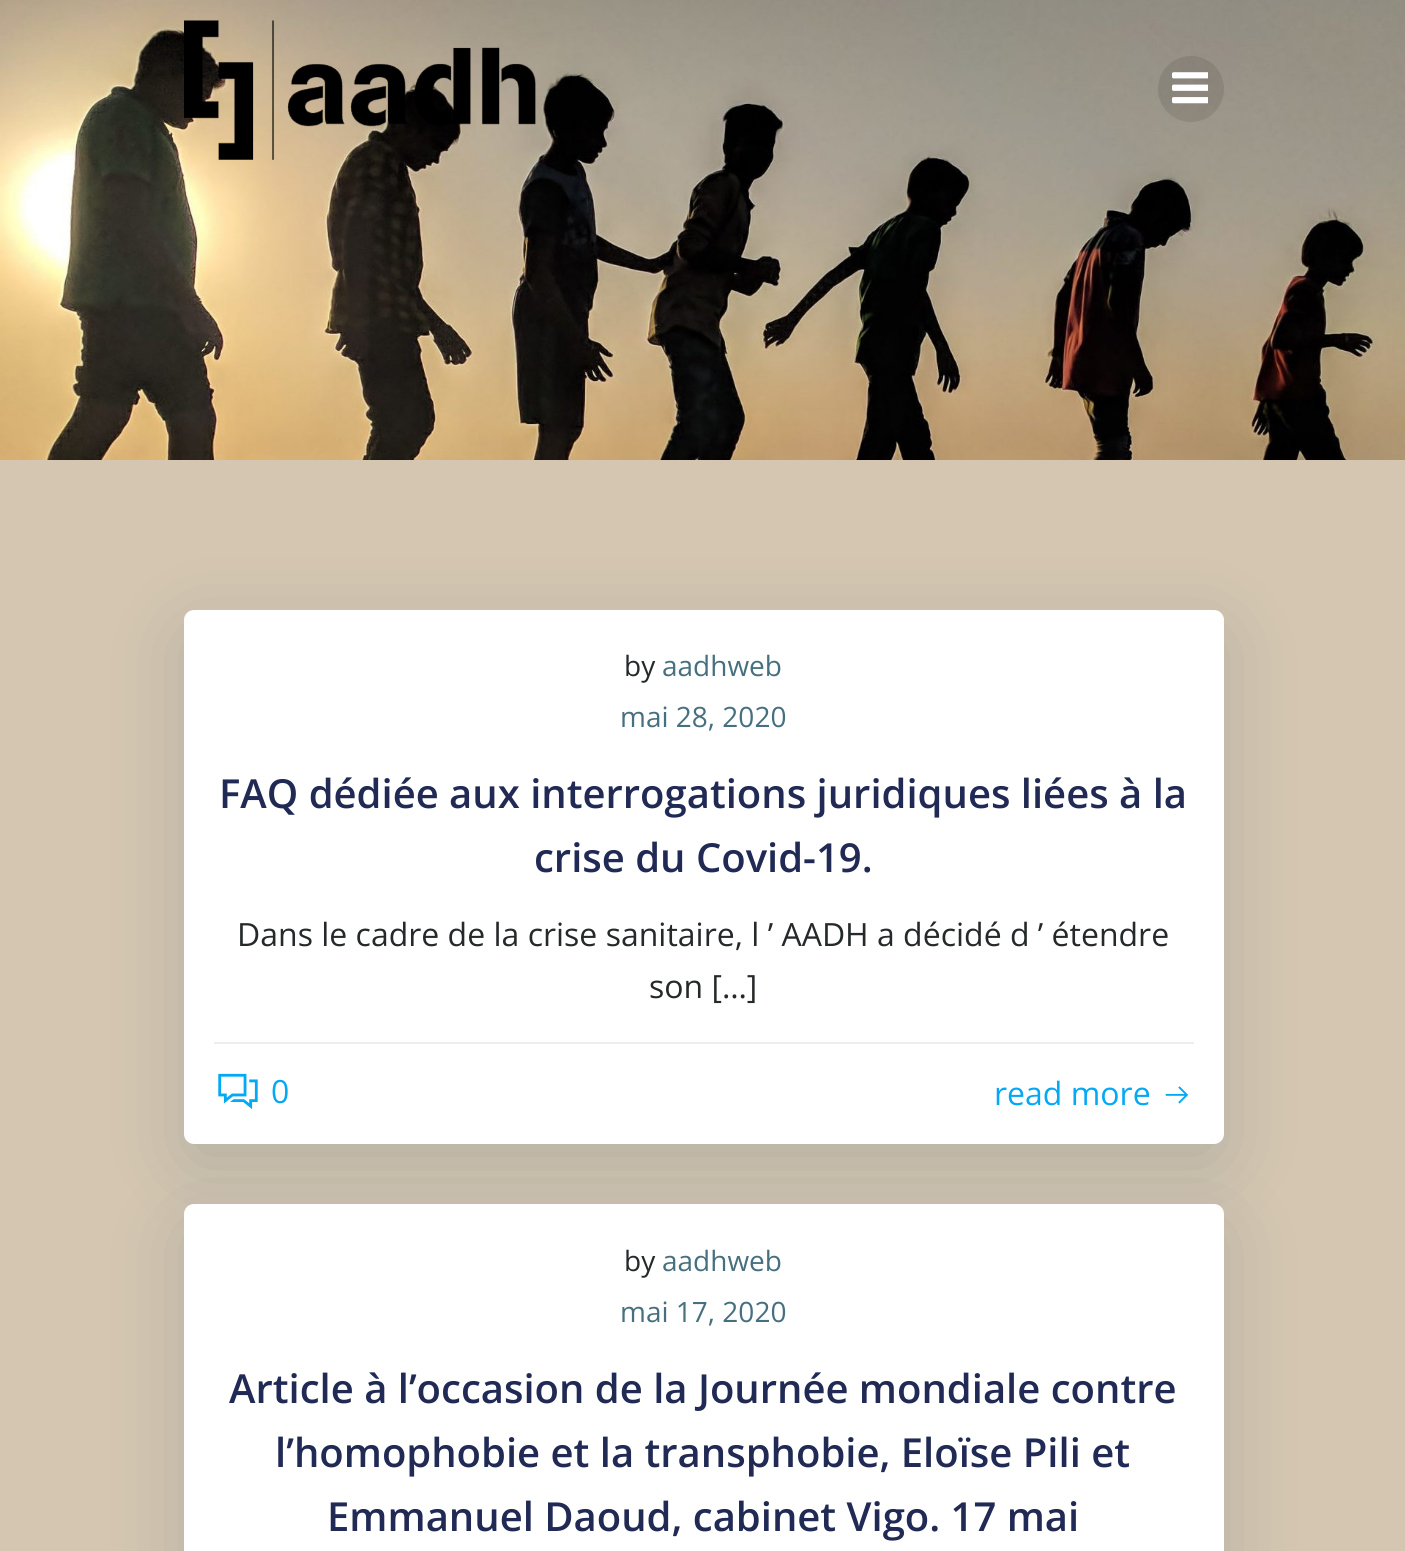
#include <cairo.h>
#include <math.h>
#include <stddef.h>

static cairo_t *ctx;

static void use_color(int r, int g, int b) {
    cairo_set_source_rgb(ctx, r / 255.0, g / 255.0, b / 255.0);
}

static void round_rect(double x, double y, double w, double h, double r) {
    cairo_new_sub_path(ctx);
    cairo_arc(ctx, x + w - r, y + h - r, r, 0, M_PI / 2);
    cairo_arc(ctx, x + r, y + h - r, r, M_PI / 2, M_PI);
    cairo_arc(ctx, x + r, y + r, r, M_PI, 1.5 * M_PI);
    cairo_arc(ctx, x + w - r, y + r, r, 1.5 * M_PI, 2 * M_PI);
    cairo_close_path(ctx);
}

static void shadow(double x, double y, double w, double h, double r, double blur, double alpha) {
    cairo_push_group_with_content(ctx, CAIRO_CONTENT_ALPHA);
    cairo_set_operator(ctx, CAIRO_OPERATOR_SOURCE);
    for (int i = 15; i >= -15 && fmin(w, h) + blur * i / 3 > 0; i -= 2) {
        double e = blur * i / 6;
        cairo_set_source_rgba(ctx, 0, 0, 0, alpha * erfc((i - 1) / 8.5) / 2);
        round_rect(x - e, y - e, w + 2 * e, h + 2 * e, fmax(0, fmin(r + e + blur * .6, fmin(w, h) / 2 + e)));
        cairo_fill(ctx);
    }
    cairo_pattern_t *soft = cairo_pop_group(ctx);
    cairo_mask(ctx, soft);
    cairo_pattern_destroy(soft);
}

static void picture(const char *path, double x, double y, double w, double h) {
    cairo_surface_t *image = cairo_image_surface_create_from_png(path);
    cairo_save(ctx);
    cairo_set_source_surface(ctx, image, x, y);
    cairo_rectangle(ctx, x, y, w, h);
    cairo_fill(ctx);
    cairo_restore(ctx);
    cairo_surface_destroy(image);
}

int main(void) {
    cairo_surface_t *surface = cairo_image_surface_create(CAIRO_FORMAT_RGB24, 1405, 1551);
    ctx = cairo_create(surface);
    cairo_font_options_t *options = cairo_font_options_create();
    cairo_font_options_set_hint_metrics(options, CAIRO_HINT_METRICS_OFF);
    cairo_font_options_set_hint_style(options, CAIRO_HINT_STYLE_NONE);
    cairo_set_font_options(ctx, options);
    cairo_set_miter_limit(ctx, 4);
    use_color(255, 255, 255);
    cairo_paint(ctx);
    picture("img1.png", 0, 0, 1405, 460);
    picture("img2.png", 184, 20, 352, 140);
    cairo_set_source_rgba(ctx, 0, 0, 0, 0.1);
    cairo_arc(ctx, 1191, 89, 33, 0, 2 * M_PI);
    cairo_fill(ctx);
    picture("img3.png", 1172, 72, 36, 32);
    use_color(212, 198, 177);
    cairo_rectangle(ctx, 0, 460, 1405, 1091);
    cairo_fill(ctx);
    use_color(1, 51, 74);
    shadow(184, 630, 1040, 534, 10, 40, 0.15);
    use_color(255, 255, 255);
    round_rect(184, 610, 1040, 534, 10);
    cairo_fill(ctx);
    use_color(238, 238, 238);
    cairo_rectangle(ctx, 214, 1042, 980, 2);
    cairo_fill(ctx);
    cairo_select_font_face(ctx, "Open Sans", CAIRO_FONT_SLANT_NORMAL, CAIRO_FONT_WEIGHT_NORMAL);
    cairo_set_font_size(ctx, 28);
    use_color(37, 41, 42);
    cairo_move_to(ctx, 624, 676);
    cairo_show_text(ctx, "by");
    use_color(70, 112, 127);
    cairo_move_to(ctx, 662, 676);
    cairo_show_text(ctx, "aadhweb");
    cairo_move_to(ctx, 620, 727);
    cairo_show_text(ctx, "mai 28, 2020");
    cairo_select_font_face(ctx, "Open Sans SemiBold", CAIRO_FONT_SLANT_NORMAL, CAIRO_FONT_WEIGHT_NORMAL);
    cairo_set_font_size(ctx, 40);
    use_color(32, 42, 84);
    cairo_move_to(ctx, 219, 808);
    cairo_show_text(ctx, "FAQ dédiée aux interrogations juridiques liées à la");
    cairo_move_to(ctx, 534, 872);
    cairo_show_text(ctx, "crise du Covid-19.");
    cairo_select_font_face(ctx, "Open Sans", CAIRO_FONT_SLANT_NORMAL, CAIRO_FONT_WEIGHT_NORMAL);
    cairo_set_font_size(ctx, 32);
    use_color(37, 41, 42);
    cairo_move_to(ctx, 237, 946);
    cairo_show_text(ctx, "Dans le cadre de la crise sanitaire, l ’ AADH a décidé d ’ étendre");
    cairo_move_to(ctx, 649, 998);
    cairo_show_text(ctx, "son […]");
    picture("img4.png", 218, 1073, 40, 36);
    use_color(3, 169, 244);
    cairo_move_to(ctx, 271, 1103);
    cairo_show_text(ctx, "0");
    cairo_move_to(ctx, 994, 1105);
    cairo_show_text(ctx, "read more");
    picture("img5.png", 1165, 1086, 24, 18);
    use_color(1, 51, 74);
    shadow(184, 1224, 1040, 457, 10, 40, 0.15);
    use_color(255, 255, 255);
    round_rect(184, 1204, 1040, 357, 10);
    cairo_fill(ctx);
    cairo_set_font_size(ctx, 28);
    use_color(37, 41, 42);
    cairo_move_to(ctx, 624, 1271);
    cairo_show_text(ctx, "by");
    use_color(70, 112, 127);
    cairo_move_to(ctx, 662, 1271);
    cairo_show_text(ctx, "aadhweb");
    cairo_move_to(ctx, 620, 1322);
    cairo_show_text(ctx, "mai 17, 2020");
    cairo_select_font_face(ctx, "Open Sans SemiBold", CAIRO_FONT_SLANT_NORMAL, CAIRO_FONT_WEIGHT_NORMAL);
    cairo_set_font_size(ctx, 40);
    use_color(32, 42, 84);
    cairo_move_to(ctx, 229, 1403);
    cairo_show_text(ctx, "Article à l’occasion de la Journée mondiale contre");
    cairo_move_to(ctx, 275, 1467);
    cairo_show_text(ctx, "l’homophobie et la transphobie, Eloïse Pili et");
    cairo_move_to(ctx, 327, 1531);
    cairo_show_text(ctx, "Emmanuel Daoud, cabinet Vigo. 17 mai");
    cairo_surface_write_to_png(surface, "result.png");
    cairo_font_options_destroy(options);
    cairo_destroy(ctx);
    cairo_surface_destroy(surface);
    return 0;
}
